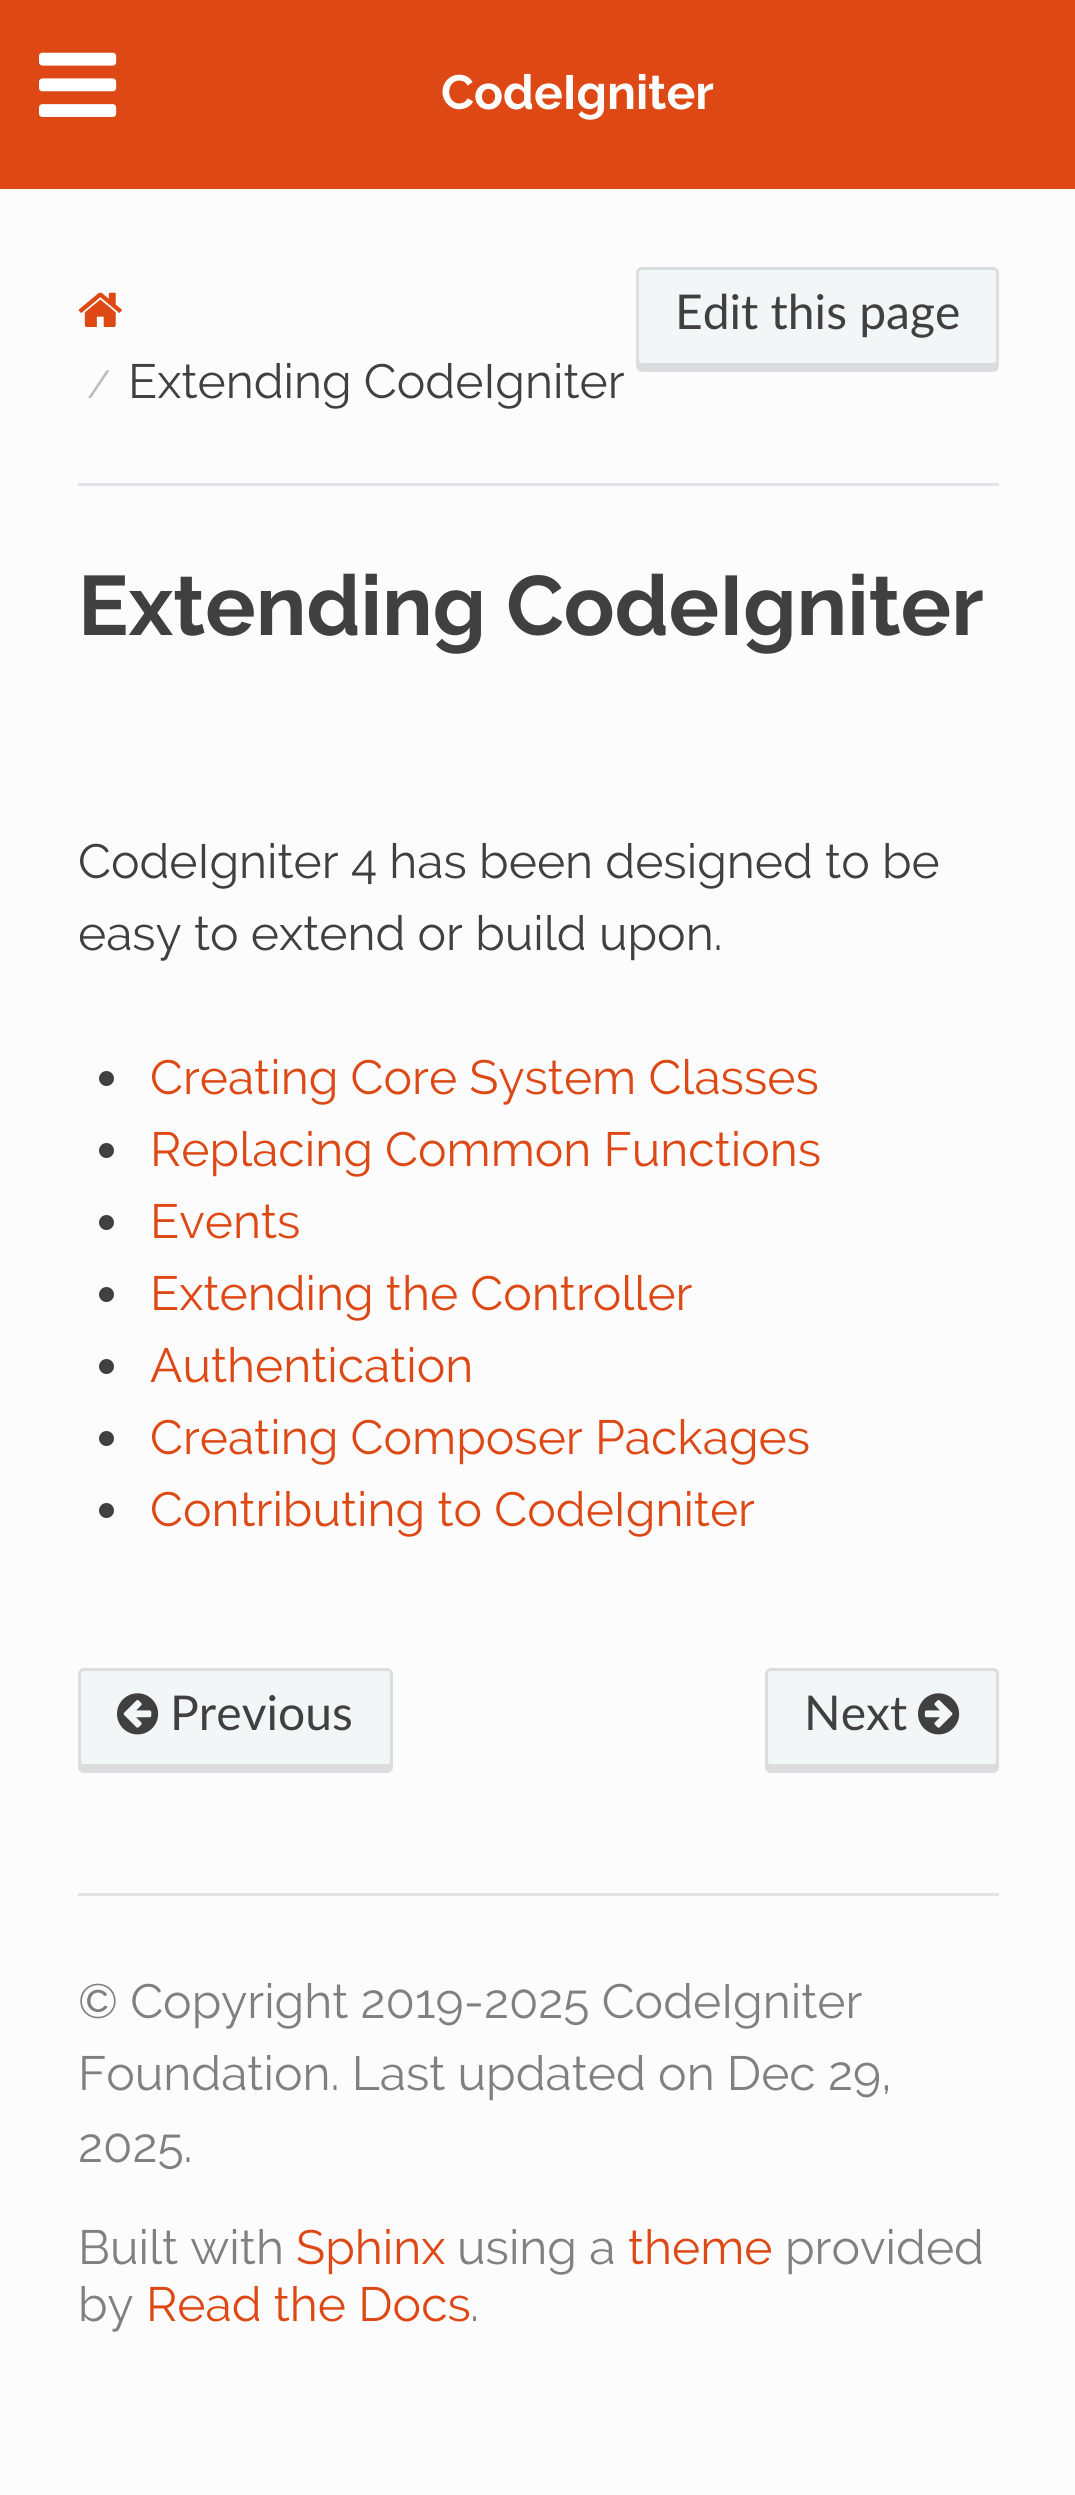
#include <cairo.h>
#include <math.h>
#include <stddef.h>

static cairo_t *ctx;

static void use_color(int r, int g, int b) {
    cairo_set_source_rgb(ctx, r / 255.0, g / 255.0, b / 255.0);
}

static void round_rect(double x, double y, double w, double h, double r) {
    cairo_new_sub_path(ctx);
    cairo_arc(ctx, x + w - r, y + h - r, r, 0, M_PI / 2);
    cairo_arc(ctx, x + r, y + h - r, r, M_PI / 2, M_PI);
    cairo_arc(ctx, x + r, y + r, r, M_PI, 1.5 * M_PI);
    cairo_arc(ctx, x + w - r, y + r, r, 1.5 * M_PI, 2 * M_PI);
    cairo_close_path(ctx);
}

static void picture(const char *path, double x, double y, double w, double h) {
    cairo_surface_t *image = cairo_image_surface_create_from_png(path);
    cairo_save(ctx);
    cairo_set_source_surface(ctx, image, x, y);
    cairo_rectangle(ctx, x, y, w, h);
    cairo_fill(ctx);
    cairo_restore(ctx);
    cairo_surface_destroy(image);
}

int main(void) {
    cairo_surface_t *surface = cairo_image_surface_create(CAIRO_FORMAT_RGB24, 1075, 2495);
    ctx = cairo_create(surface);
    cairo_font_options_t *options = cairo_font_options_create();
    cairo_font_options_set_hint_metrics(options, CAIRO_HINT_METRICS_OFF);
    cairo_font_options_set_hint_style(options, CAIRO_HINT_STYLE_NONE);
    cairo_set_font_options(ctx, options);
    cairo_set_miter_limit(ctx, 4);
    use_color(252, 252, 252);
    cairo_paint(ctx);
    use_color(221, 72, 20);
    cairo_rectangle(ctx, 0, 0, 1075, 189);
    cairo_fill(ctx);
    picture("img1.png", 39, 52, 78, 65);
    cairo_select_font_face(ctx, "Raleway", CAIRO_FONT_SLANT_NORMAL, CAIRO_FONT_WEIGHT_BOLD);
    cairo_set_font_size(ctx, 48);
    use_color(255, 255, 255);
    cairo_move_to(ctx, 441, 109);
    cairo_show_text(ctx, "CodeIgniter");
    use_color(243, 246, 246);
    round_rect(636, 267, 363, 105, 6);
    cairo_fill(ctx);
    use_color(219, 221, 221);
    cairo_new_path(ctx);
    cairo_move_to(ctx, 639, 360);
    cairo_line_to(ctx, 639, 366);
    cairo_curve_to(ctx, 639, 368, 640, 369, 642, 369);
    cairo_line_to(ctx, 993, 369);
    cairo_curve_to(ctx, 995, 369, 996, 368, 996, 366);
    cairo_line_to(ctx, 996, 360);
    cairo_curve_to(ctx, 996, 362, 995, 363, 993, 363);
    cairo_line_to(ctx, 642, 363);
    cairo_curve_to(ctx, 640, 363, 639, 362, 639, 360);
    cairo_close_path(ctx);
    cairo_fill(ctx);
    round_rect(637.5, 268.5, 360, 102, 4.5);
    cairo_set_source_rgba(ctx, 0, 0, 0, 0.1);
    cairo_set_line_width(ctx, 3);
    cairo_stroke(ctx);
    cairo_select_font_face(ctx, "Lato", CAIRO_FONT_SLANT_NORMAL, CAIRO_FONT_WEIGHT_NORMAL);
    use_color(64, 64, 64);
    cairo_move_to(ctx, 675, 329);
    cairo_show_text(ctx, "Edit this page");
    picture("img2.png", 78, 292, 44, 35);
    cairo_select_font_face(ctx, "Raleway", CAIRO_FONT_SLANT_NORMAL, CAIRO_FONT_WEIGHT_NORMAL);
    cairo_set_font_size(ctx, 39);
    use_color(187, 187, 187);
    cairo_move_to(ctx, 87, 398);
    cairo_show_text(ctx, "/");
    cairo_set_font_size(ctx, 48);
    use_color(64, 64, 64);
    cairo_move_to(ctx, 128, 398);
    cairo_show_text(ctx, "Extending CodeIgniter");
    use_color(225, 228, 229);
    cairo_rectangle(ctx, 78, 483, 921, 3);
    cairo_fill(ctx);
    cairo_select_font_face(ctx, "Raleway", CAIRO_FONT_SLANT_NORMAL, CAIRO_FONT_WEIGHT_BOLD);
    cairo_set_font_size(ctx, 84);
    use_color(64, 64, 64);
    cairo_move_to(ctx, 78, 635);
    cairo_show_text(ctx, "Extending CodeIgniter");
    cairo_select_font_face(ctx, "Raleway", CAIRO_FONT_SLANT_NORMAL, CAIRO_FONT_WEIGHT_NORMAL);
    cairo_set_font_size(ctx, 48);
    cairo_move_to(ctx, 78, 878);
    cairo_show_text(ctx, "CodeIgniter 4 has been designed to be");
    cairo_move_to(ctx, 78, 950);
    cairo_show_text(ctx, "easy to extend or build upon.");
    cairo_new_path(ctx);
    cairo_arc(ctx, 106.5, 1078.5, 7.5, 0, 2 * M_PI);
    cairo_fill(ctx);
    use_color(221, 72, 20);
    cairo_move_to(ctx, 150, 1094);
    cairo_show_text(ctx, "Creating Core System Classes");
    use_color(64, 64, 64);
    cairo_new_path(ctx);
    cairo_arc(ctx, 106.5, 1150.5, 7.5, 0, 2 * M_PI);
    cairo_fill(ctx);
    use_color(221, 72, 20);
    cairo_move_to(ctx, 150, 1166);
    cairo_show_text(ctx, "Replacing Common Functions");
    use_color(64, 64, 64);
    cairo_new_path(ctx);
    cairo_arc(ctx, 106.5, 1222.5, 7.5, 0, 2 * M_PI);
    cairo_fill(ctx);
    use_color(221, 72, 20);
    cairo_move_to(ctx, 150, 1238);
    cairo_show_text(ctx, "Events");
    use_color(64, 64, 64);
    cairo_new_path(ctx);
    cairo_arc(ctx, 106.5, 1294.5, 7.5, 0, 2 * M_PI);
    cairo_fill(ctx);
    use_color(221, 72, 20);
    cairo_move_to(ctx, 150, 1310);
    cairo_show_text(ctx, "Extending the Controller");
    use_color(64, 64, 64);
    cairo_new_path(ctx);
    cairo_arc(ctx, 106.5, 1366.5, 7.5, 0, 2 * M_PI);
    cairo_fill(ctx);
    use_color(221, 72, 20);
    cairo_move_to(ctx, 150, 1382);
    cairo_show_text(ctx, "Authentication");
    use_color(64, 64, 64);
    cairo_new_path(ctx);
    cairo_arc(ctx, 106.5, 1438.5, 7.5, 0, 2 * M_PI);
    cairo_fill(ctx);
    use_color(221, 72, 20);
    cairo_move_to(ctx, 150, 1454);
    cairo_show_text(ctx, "Creating Composer Packages");
    use_color(64, 64, 64);
    cairo_new_path(ctx);
    cairo_arc(ctx, 106.5, 1510.5, 7.5, 0, 2 * M_PI);
    cairo_fill(ctx);
    use_color(221, 72, 20);
    cairo_move_to(ctx, 150, 1526);
    cairo_show_text(ctx, "Contributing to CodeIgniter");
    use_color(243, 246, 246);
    round_rect(78, 1668, 315, 105, 6);
    cairo_fill(ctx);
    use_color(219, 221, 221);
    cairo_new_path(ctx);
    cairo_move_to(ctx, 81, 1761);
    cairo_line_to(ctx, 81, 1767);
    cairo_curve_to(ctx, 81, 1769, 82, 1770, 84, 1770);
    cairo_line_to(ctx, 387, 1770);
    cairo_curve_to(ctx, 389, 1770, 390, 1769, 390, 1767);
    cairo_line_to(ctx, 390, 1761);
    cairo_curve_to(ctx, 390, 1763, 389, 1764, 387, 1764);
    cairo_line_to(ctx, 84, 1764);
    cairo_curve_to(ctx, 82, 1764, 81, 1763, 81, 1761);
    cairo_close_path(ctx);
    cairo_fill(ctx);
    round_rect(79.5, 1669.5, 312, 102, 4.5);
    cairo_set_source_rgba(ctx, 0, 0, 0, 0.1);
    cairo_stroke(ctx);
    picture("img3.png", 117, 1693, 42, 42);
    cairo_select_font_face(ctx, "Lato", CAIRO_FONT_SLANT_NORMAL, CAIRO_FONT_WEIGHT_NORMAL);
    use_color(64, 64, 64);
    cairo_move_to(ctx, 170, 1730);
    cairo_show_text(ctx, "Previous");
    use_color(243, 246, 246);
    round_rect(765, 1668, 234, 105, 6);
    cairo_fill(ctx);
    use_color(219, 221, 221);
    cairo_new_path(ctx);
    cairo_move_to(ctx, 768, 1761);
    cairo_line_to(ctx, 768, 1767);
    cairo_curve_to(ctx, 768, 1769, 769, 1770, 771, 1770);
    cairo_line_to(ctx, 993, 1770);
    cairo_curve_to(ctx, 995, 1770, 996, 1769, 996, 1767);
    cairo_line_to(ctx, 996, 1761);
    cairo_curve_to(ctx, 996, 1763, 995, 1764, 993, 1764);
    cairo_line_to(ctx, 771, 1764);
    cairo_curve_to(ctx, 769, 1764, 768, 1763, 768, 1761);
    cairo_close_path(ctx);
    cairo_fill(ctx);
    round_rect(766.5, 1669.5, 231, 102, 4.5);
    cairo_set_source_rgba(ctx, 0, 0, 0, 0.1);
    cairo_stroke(ctx);
    use_color(64, 64, 64);
    cairo_move_to(ctx, 804, 1730);
    cairo_show_text(ctx, "Next");
    picture("img4.png", 918, 1693, 42, 42);
    use_color(225, 228, 229);
    cairo_rectangle(ctx, 78, 1893, 921, 3);
    cairo_fill(ctx);
    cairo_select_font_face(ctx, "Raleway", CAIRO_FONT_SLANT_NORMAL, CAIRO_FONT_WEIGHT_NORMAL);
    use_color(128, 128, 128);
    cairo_move_to(ctx, 78, 2018);
    cairo_show_text(ctx, "© Copyright 2019-2025 CodeIgniter");
    cairo_move_to(ctx, 78, 2090);
    cairo_show_text(ctx, "Foundation. Last updated on Dec 29,");
    cairo_move_to(ctx, 78, 2162);
    cairo_show_text(ctx, "2025.");
    cairo_move_to(ctx, 78, 2264);
    cairo_show_text(ctx, "Built with");
    use_color(221, 72, 20);
    cairo_move_to(ctx, 296, 2264);
    cairo_show_text(ctx, "Sphinx");
    use_color(128, 128, 128);
    cairo_move_to(ctx, 457, 2264);
    cairo_show_text(ctx, "using a");
    use_color(221, 72, 20);
    cairo_move_to(ctx, 628, 2264);
    cairo_show_text(ctx, "theme");
    use_color(128, 128, 128);
    cairo_move_to(ctx, 785, 2264);
    cairo_show_text(ctx, "provided");
    cairo_move_to(ctx, 78, 2321);
    cairo_show_text(ctx, "by");
    use_color(221, 72, 20);
    cairo_move_to(ctx, 146, 2321);
    cairo_show_text(ctx, "Read the Docs");
    use_color(128, 128, 128);
    cairo_move_to(ctx, 470, 2321);
    cairo_show_text(ctx, ".");
    cairo_surface_write_to_png(surface, "result.png");
    cairo_font_options_destroy(options);
    cairo_destroy(ctx);
    cairo_surface_destroy(surface);
    return 0;
}
